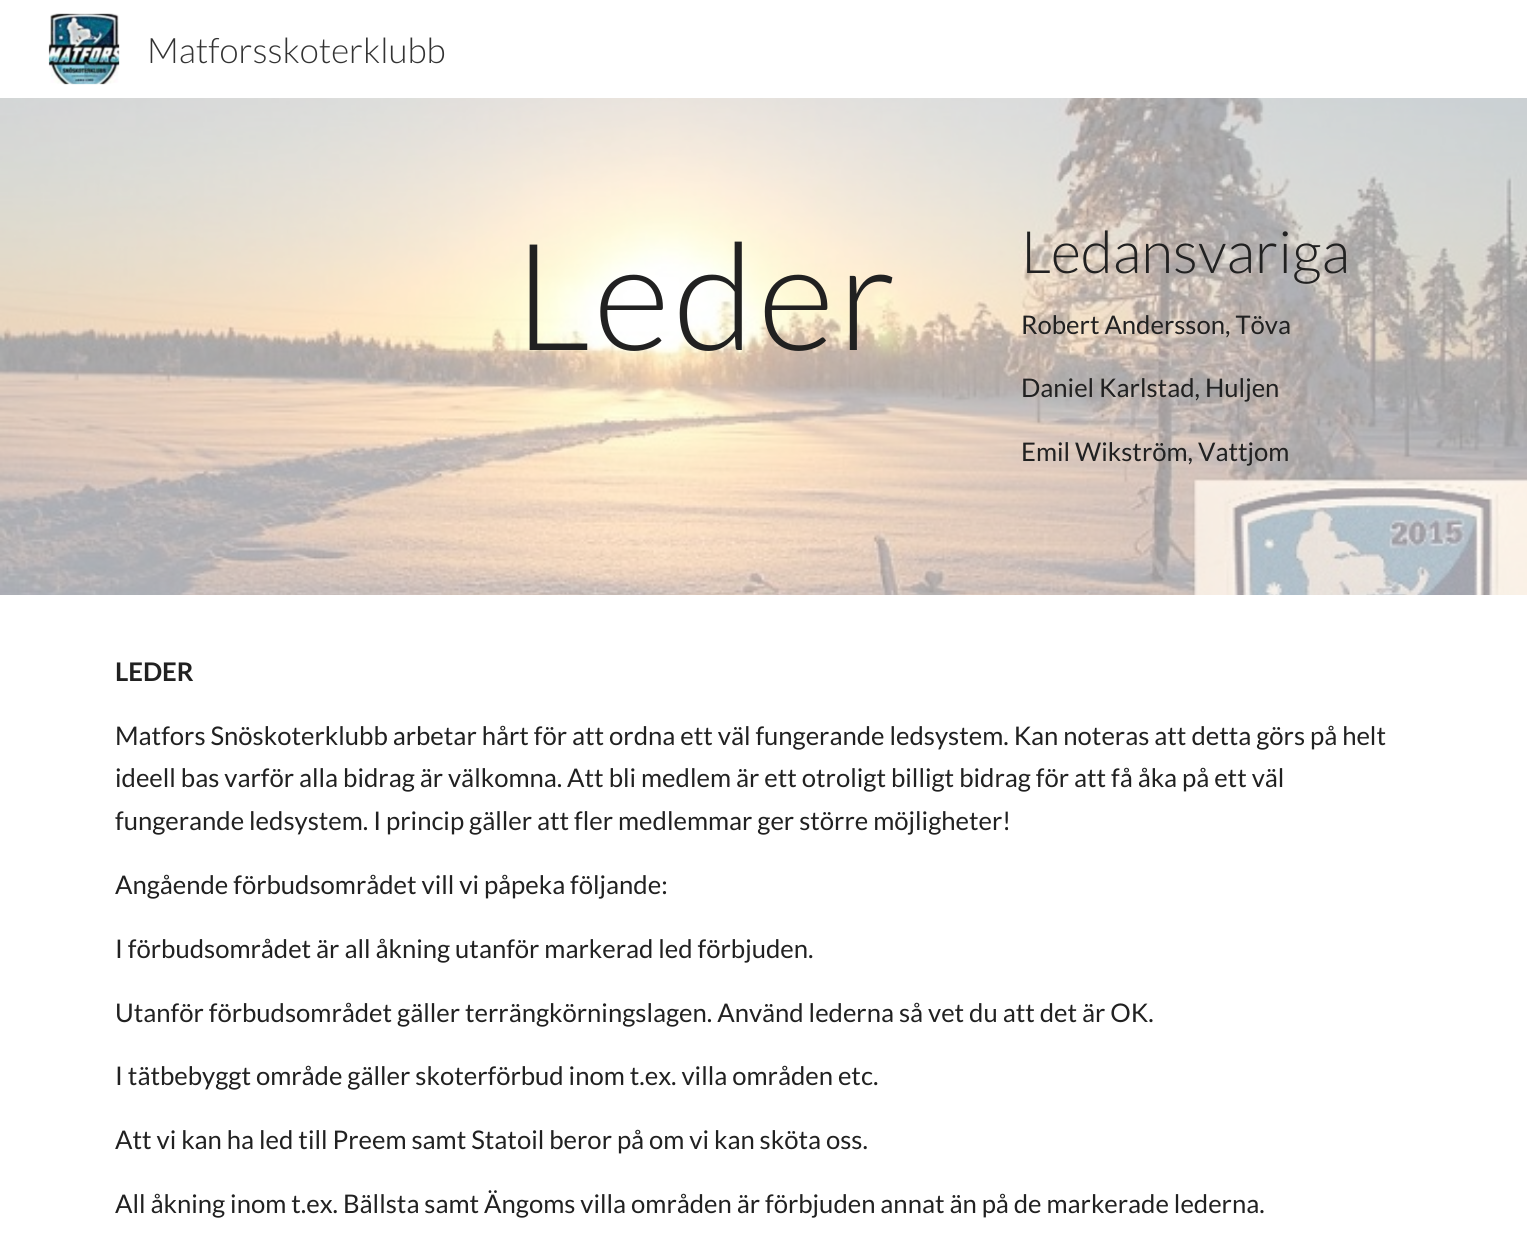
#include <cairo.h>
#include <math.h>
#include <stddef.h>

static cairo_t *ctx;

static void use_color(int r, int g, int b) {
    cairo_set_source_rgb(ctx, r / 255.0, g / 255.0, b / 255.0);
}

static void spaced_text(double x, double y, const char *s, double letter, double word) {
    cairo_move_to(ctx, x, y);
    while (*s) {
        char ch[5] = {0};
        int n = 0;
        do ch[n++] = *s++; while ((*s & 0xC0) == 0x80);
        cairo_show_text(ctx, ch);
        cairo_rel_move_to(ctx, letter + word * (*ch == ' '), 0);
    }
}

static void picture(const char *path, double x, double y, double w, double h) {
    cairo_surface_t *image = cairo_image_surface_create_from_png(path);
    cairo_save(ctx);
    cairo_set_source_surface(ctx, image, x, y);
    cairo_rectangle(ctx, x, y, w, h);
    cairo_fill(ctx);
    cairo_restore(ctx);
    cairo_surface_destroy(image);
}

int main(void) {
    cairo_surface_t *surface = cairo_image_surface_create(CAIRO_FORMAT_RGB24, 1527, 1238);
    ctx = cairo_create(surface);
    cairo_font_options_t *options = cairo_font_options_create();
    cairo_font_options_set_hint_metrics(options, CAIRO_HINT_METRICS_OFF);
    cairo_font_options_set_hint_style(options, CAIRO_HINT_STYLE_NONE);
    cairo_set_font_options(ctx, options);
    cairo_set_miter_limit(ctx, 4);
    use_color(255, 255, 255);
    cairo_paint(ctx);
    picture("img1.png", 48, 13, 72, 72);
    cairo_select_font_face(ctx, "Lato Light", CAIRO_FONT_SLANT_NORMAL, CAIRO_FONT_WEIGHT_NORMAL);
    cairo_set_font_size(ctx, 35);
    use_color(51, 51, 51);
    cairo_move_to(ctx, 147, 63);
    cairo_show_text(ctx, "Matforsskoterklubb");
    picture("img2.png", 0, 98, 1527, 497);
    cairo_set_font_size(ctx, 149);
    use_color(33, 33, 33);
    spaced_text(514, 350, "Leder", 3.5, 0);
    cairo_set_font_size(ctx, 58.5);
    cairo_move_to(ctx, 1021, 273);
    cairo_show_text(ctx, "Ledansvariga");
    cairo_select_font_face(ctx, "Lato", CAIRO_FONT_SLANT_NORMAL, CAIRO_FONT_WEIGHT_NORMAL);
    cairo_set_font_size(ctx, 25.65);
    cairo_move_to(ctx, 1021, 334);
    cairo_show_text(ctx, "Robert Andersson, Töva");
    cairo_move_to(ctx, 1021, 397);
    cairo_show_text(ctx, "Daniel Karlstad, Huljen");
    cairo_move_to(ctx, 1021, 461);
    cairo_show_text(ctx, "Emil Wikström, Vattjom");
    cairo_select_font_face(ctx, "Lato", CAIRO_FONT_SLANT_NORMAL, CAIRO_FONT_WEIGHT_BOLD);
    cairo_move_to(ctx, 115, 681);
    cairo_show_text(ctx, "LEDER");
    cairo_select_font_face(ctx, "Lato", CAIRO_FONT_SLANT_NORMAL, CAIRO_FONT_WEIGHT_NORMAL);
    cairo_move_to(ctx, 115, 745);
    cairo_show_text(ctx, "Matfors Snöskoterklubb arbetar hårt för att ordna ett väl fungerande ledsystem. Kan noteras att detta görs på helt");
    cairo_move_to(ctx, 115, 787);
    cairo_show_text(ctx, "ideell bas varför alla bidrag är välkomna. Att bli medlem är ett otroligt billigt bidrag för att få åka på ett väl");
    cairo_move_to(ctx, 115, 830);
    cairo_show_text(ctx, "fungerande ledsystem. I princip gäller att fler medlemmar ger större möjligheter!");
    cairo_move_to(ctx, 115, 894);
    cairo_show_text(ctx, "Angående förbudsområdet vill vi påpeka följande:");
    cairo_move_to(ctx, 115, 958);
    cairo_show_text(ctx, "I förbudsområdet är all åkning utanför markerad led förbjuden.");
    cairo_move_to(ctx, 115, 1022);
    cairo_show_text(ctx, "Utanför förbudsområdet gäller terrängkörningslagen. Använd lederna så vet du att det är OK.");
    cairo_move_to(ctx, 115, 1085);
    cairo_show_text(ctx, "I tätbebyggt område gäller skoterförbud inom t.ex. villa områden etc.");
    cairo_move_to(ctx, 115, 1149);
    cairo_show_text(ctx, "Att vi kan ha led till Preem samt Statoil beror på om vi kan sköta oss.");
    cairo_move_to(ctx, 115, 1213);
    cairo_show_text(ctx, "All åkning inom t.ex. Bällsta samt Ängoms villa områden är förbjuden annat än på de markerade lederna.");
    cairo_surface_write_to_png(surface, "result.png");
    cairo_font_options_destroy(options);
    cairo_destroy(ctx);
    cairo_surface_destroy(surface);
    return 0;
}
